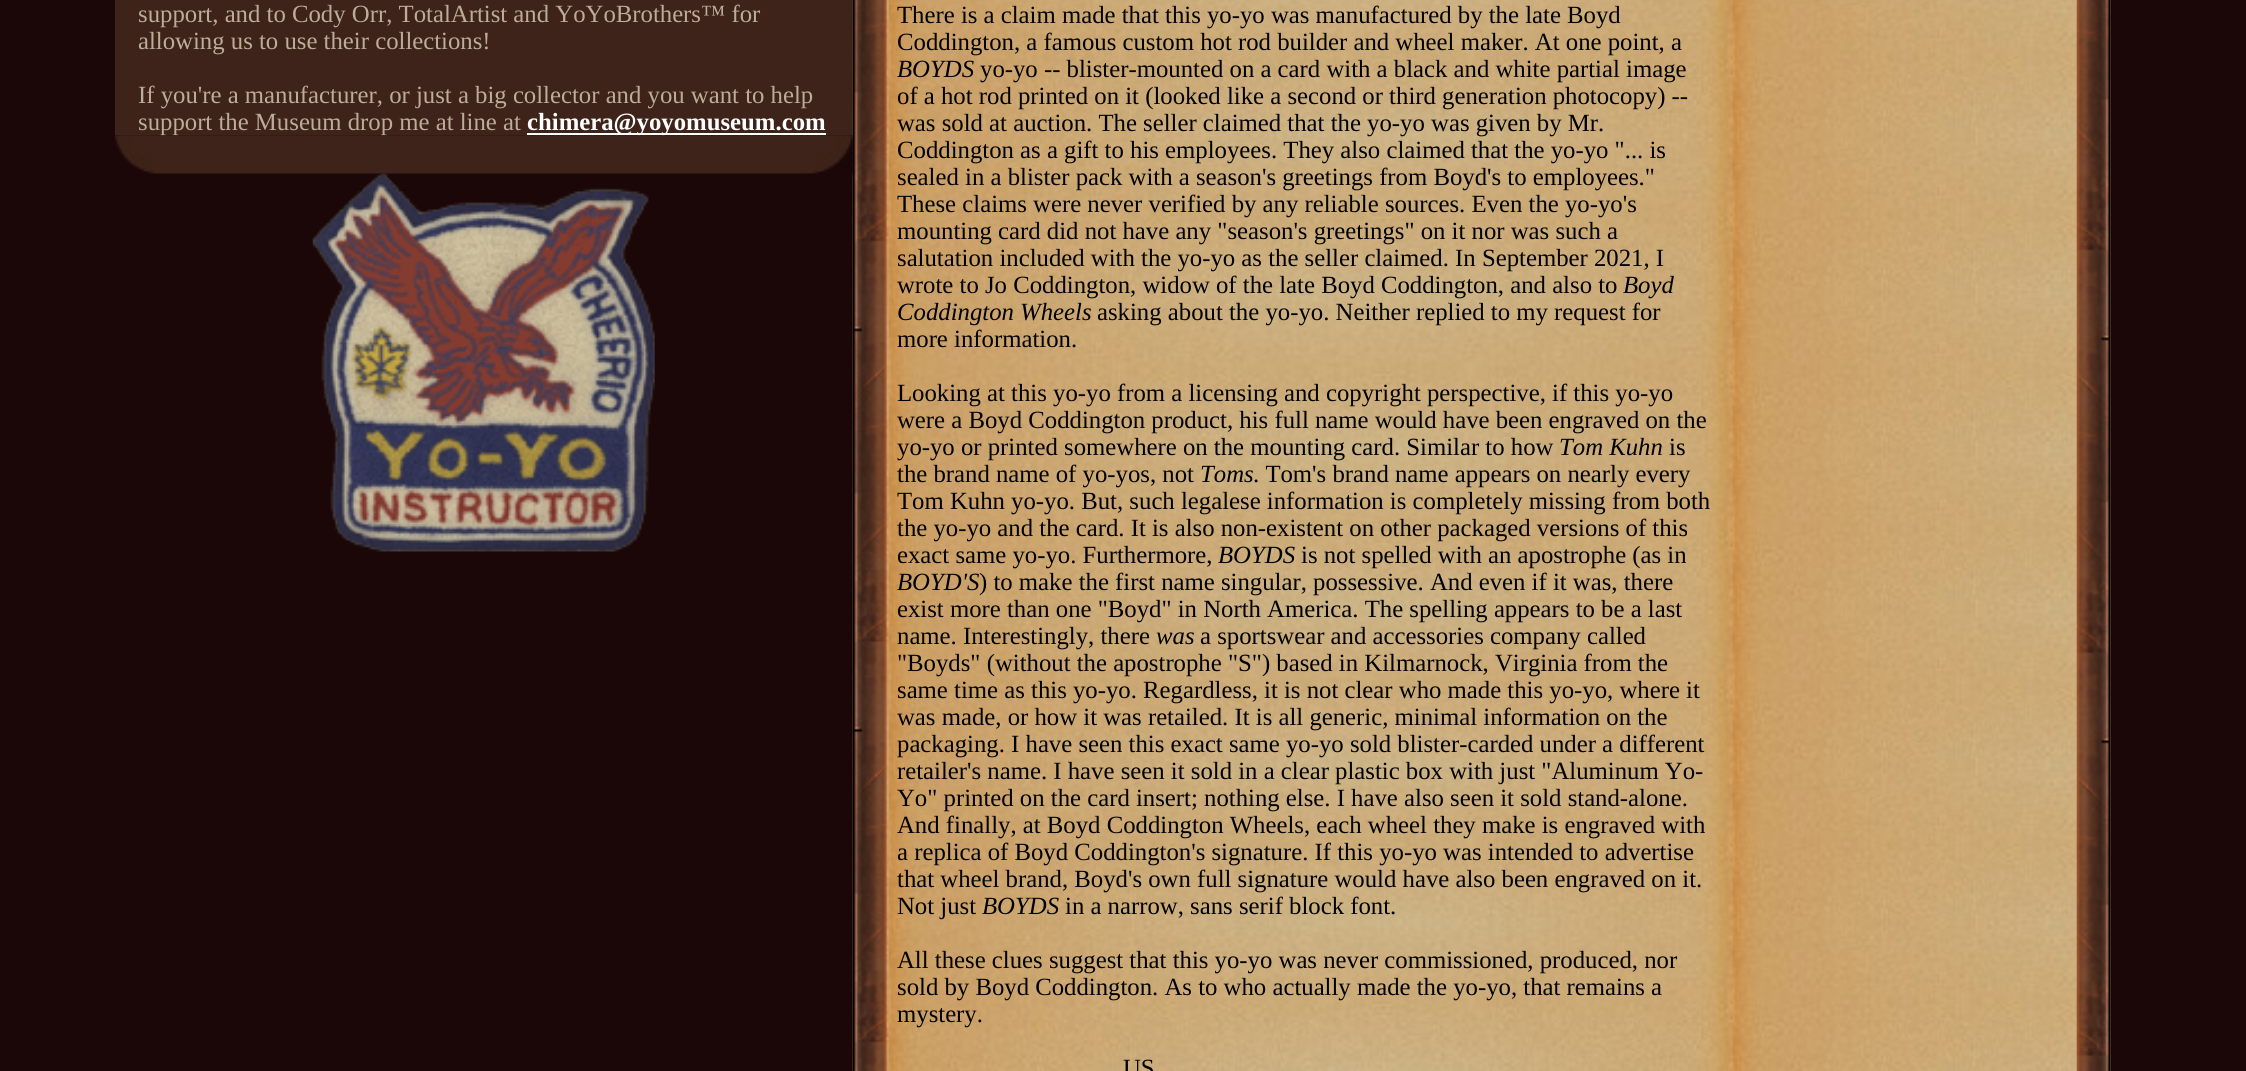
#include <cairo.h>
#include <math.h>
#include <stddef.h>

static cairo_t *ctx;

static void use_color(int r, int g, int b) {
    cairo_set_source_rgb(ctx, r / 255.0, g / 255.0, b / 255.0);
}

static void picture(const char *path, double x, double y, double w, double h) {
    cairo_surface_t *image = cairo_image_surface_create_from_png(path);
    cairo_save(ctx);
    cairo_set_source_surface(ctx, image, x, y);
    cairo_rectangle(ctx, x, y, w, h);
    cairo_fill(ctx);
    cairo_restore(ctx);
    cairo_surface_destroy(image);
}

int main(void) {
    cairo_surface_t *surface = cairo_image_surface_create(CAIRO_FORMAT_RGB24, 2246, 1071);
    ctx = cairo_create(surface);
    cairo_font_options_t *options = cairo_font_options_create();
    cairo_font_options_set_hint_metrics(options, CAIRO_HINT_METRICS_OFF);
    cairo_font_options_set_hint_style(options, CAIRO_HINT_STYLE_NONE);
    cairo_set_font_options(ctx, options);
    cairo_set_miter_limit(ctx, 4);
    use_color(27, 7, 8);
    cairo_paint(ctx);
    use_color(61, 35, 25);
    cairo_rectangle(ctx, 115, 0, 738, 135);
    cairo_fill(ctx);
    cairo_select_font_face(ctx, "Liberation Serif", CAIRO_FONT_SLANT_NORMAL, CAIRO_FONT_WEIGHT_NORMAL);
    cairo_set_font_size(ctx, 24.75);
    use_color(189, 172, 152);
    cairo_move_to(ctx, 138, 22);
    cairo_show_text(ctx, "support, and to Cody Orr, TotalArtist and YoYoBrothers™ for");
    cairo_move_to(ctx, 138, 49);
    cairo_show_text(ctx, "allowing us to use their collections!");
    cairo_move_to(ctx, 138, 103);
    cairo_show_text(ctx, "If you're a manufacturer, or just a big collector and you want to help");
    cairo_move_to(ctx, 138, 130);
    cairo_show_text(ctx, "support the Museum drop me at line at");
    use_color(255, 255, 255);
    cairo_rectangle(ctx, 527, 133, 299, 2);
    cairo_fill(ctx);
    cairo_select_font_face(ctx, "Liberation Serif", CAIRO_FONT_SLANT_NORMAL, CAIRO_FONT_WEIGHT_BOLD);
    cairo_move_to(ctx, 527, 130);
    cairo_show_text(ctx, "chimera@yoyomuseum.com");
    picture("img3.png", 852, 0, 1259, 1071);
    picture("img4.png", 852, 0, 37, 1071);
    picture("img1.png", 114, 135, 739, 39);
    picture("img2.png", 312, 173, 343, 379);
    picture("img5.png", 888, 0, 1189, 1071);
    cairo_select_font_face(ctx, "Liberation Serif", CAIRO_FONT_SLANT_NORMAL, CAIRO_FONT_WEIGHT_NORMAL);
    use_color(0, 0, 0);
    cairo_move_to(ctx, 897, 23);
    cairo_show_text(ctx, "There is a claim made that this yo-yo was manufactured by the late Boyd");
    cairo_move_to(ctx, 897, 50);
    cairo_show_text(ctx, "Coddington, a famous custom hot rod builder and wheel maker. At one point, a");
    cairo_select_font_face(ctx, "Liberation Serif", CAIRO_FONT_SLANT_ITALIC, CAIRO_FONT_WEIGHT_NORMAL);
    cairo_move_to(ctx, 897, 77);
    cairo_show_text(ctx, "BOYDS");
    cairo_select_font_face(ctx, "Liberation Serif", CAIRO_FONT_SLANT_NORMAL, CAIRO_FONT_WEIGHT_NORMAL);
    cairo_move_to(ctx, 980, 77);
    cairo_show_text(ctx, "yo-yo -- blister-mounted on a card with a black and white partial image");
    cairo_move_to(ctx, 897, 104);
    cairo_show_text(ctx, "of a hot rod printed on it (looked like a second or third generation photocopy) --");
    cairo_move_to(ctx, 897, 131);
    cairo_show_text(ctx, "was sold at auction. The seller claimed that the yo-yo was given by Mr.");
    cairo_move_to(ctx, 897, 158);
    cairo_show_text(ctx, "Coddington as a gift to his employees. They also claimed that the yo-yo \"... is");
    cairo_move_to(ctx, 897, 185);
    cairo_show_text(ctx, "sealed in a blister pack with a season's greetings from Boyd's to employees.\"");
    cairo_move_to(ctx, 897, 212);
    cairo_show_text(ctx, "These claims were never verified by any reliable sources. Even the yo-yo's");
    cairo_move_to(ctx, 897, 239);
    cairo_show_text(ctx, "mounting card did not have any \"season's greetings\" on it nor was such a");
    cairo_move_to(ctx, 897, 266);
    cairo_show_text(ctx, "salutation included with the yo-yo as the seller claimed. In September 2021, I");
    cairo_move_to(ctx, 897, 293);
    cairo_show_text(ctx, "wrote to Jo Coddington, widow of the late Boyd Coddington, and also to");
    cairo_select_font_face(ctx, "Liberation Serif", CAIRO_FONT_SLANT_ITALIC, CAIRO_FONT_WEIGHT_NORMAL);
    cairo_move_to(ctx, 1623, 293);
    cairo_show_text(ctx, "Boyd");
    cairo_move_to(ctx, 897, 320);
    cairo_show_text(ctx, "Coddington Wheels");
    cairo_select_font_face(ctx, "Liberation Serif", CAIRO_FONT_SLANT_NORMAL, CAIRO_FONT_WEIGHT_NORMAL);
    cairo_move_to(ctx, 1097, 320);
    cairo_show_text(ctx, "asking about the yo-yo. Neither replied to my request for");
    cairo_move_to(ctx, 897, 347);
    cairo_show_text(ctx, "more information.");
    cairo_move_to(ctx, 897, 401);
    cairo_show_text(ctx, "Looking at this yo-yo from a licensing and copyright perspective, if this yo-yo");
    cairo_move_to(ctx, 897, 428);
    cairo_show_text(ctx, "were a Boyd Coddington product, his full name would have been engraved on the");
    cairo_move_to(ctx, 897, 455);
    cairo_show_text(ctx, "yo-yo or printed somewhere on the mounting card. Similar to how");
    cairo_select_font_face(ctx, "Liberation Serif", CAIRO_FONT_SLANT_ITALIC, CAIRO_FONT_WEIGHT_NORMAL);
    cairo_move_to(ctx, 1559, 455);
    cairo_show_text(ctx, "Tom Kuhn");
    cairo_select_font_face(ctx, "Liberation Serif", CAIRO_FONT_SLANT_NORMAL, CAIRO_FONT_WEIGHT_NORMAL);
    cairo_move_to(ctx, 1669, 455);
    cairo_show_text(ctx, "is");
    cairo_move_to(ctx, 897, 482);
    cairo_show_text(ctx, "the brand name of yo-yos, not");
    cairo_select_font_face(ctx, "Liberation Serif", CAIRO_FONT_SLANT_ITALIC, CAIRO_FONT_WEIGHT_NORMAL);
    cairo_move_to(ctx, 1200, 482);
    cairo_show_text(ctx, "Toms");
    cairo_select_font_face(ctx, "Liberation Serif", CAIRO_FONT_SLANT_NORMAL, CAIRO_FONT_WEIGHT_NORMAL);
    cairo_move_to(ctx, 1253, 482);
    cairo_show_text(ctx, ". Tom's brand name appears on nearly every");
    cairo_move_to(ctx, 897, 509);
    cairo_show_text(ctx, "Tom Kuhn yo-yo. But, such legalese information is completely missing from both");
    cairo_move_to(ctx, 897, 536);
    cairo_show_text(ctx, "the yo-yo and the card. It is also non-existent on other packaged versions of this");
    cairo_move_to(ctx, 897, 563);
    cairo_show_text(ctx, "exact same yo-yo. Furthermore,");
    cairo_select_font_face(ctx, "Liberation Serif", CAIRO_FONT_SLANT_ITALIC, CAIRO_FONT_WEIGHT_NORMAL);
    cairo_move_to(ctx, 1218, 563);
    cairo_show_text(ctx, "BOYDS");
    cairo_select_font_face(ctx, "Liberation Serif", CAIRO_FONT_SLANT_NORMAL, CAIRO_FONT_WEIGHT_NORMAL);
    cairo_move_to(ctx, 1301, 563);
    cairo_show_text(ctx, "is not spelled with an apostrophe (as in");
    cairo_select_font_face(ctx, "Liberation Serif", CAIRO_FONT_SLANT_ITALIC, CAIRO_FONT_WEIGHT_NORMAL);
    cairo_move_to(ctx, 897, 590);
    cairo_show_text(ctx, "BOYD'S");
    cairo_select_font_face(ctx, "Liberation Serif", CAIRO_FONT_SLANT_NORMAL, CAIRO_FONT_WEIGHT_NORMAL);
    cairo_move_to(ctx, 979, 590);
    cairo_show_text(ctx, ") to make the first name singular, possessive. And even if it was, there");
    cairo_move_to(ctx, 897, 617);
    cairo_show_text(ctx, "exist more than one \"Boyd\" in North America. The spelling appears to be a last");
    cairo_move_to(ctx, 897, 644);
    cairo_show_text(ctx, "name. Interestingly, there");
    cairo_select_font_face(ctx, "Liberation Serif", CAIRO_FONT_SLANT_ITALIC, CAIRO_FONT_WEIGHT_NORMAL);
    cairo_move_to(ctx, 1156, 644);
    cairo_show_text(ctx, "was");
    cairo_select_font_face(ctx, "Liberation Serif", CAIRO_FONT_SLANT_NORMAL, CAIRO_FONT_WEIGHT_NORMAL);
    cairo_move_to(ctx, 1200, 644);
    cairo_show_text(ctx, "a sportswear and accessories company called");
    cairo_move_to(ctx, 897, 671);
    cairo_show_text(ctx, "\"Boyds\" (without the apostrophe \"S\") based in Kilmarnock, Virginia from the");
    cairo_move_to(ctx, 897, 698);
    cairo_show_text(ctx, "same time as this yo-yo. Regardless, it is not clear who made this yo-yo, where it");
    cairo_move_to(ctx, 897, 725);
    cairo_show_text(ctx, "was made, or how it was retailed. It is all generic, minimal information on the");
    cairo_move_to(ctx, 897, 752);
    cairo_show_text(ctx, "packaging. I have seen this exact same yo-yo sold blister-carded under a different");
    cairo_move_to(ctx, 897, 779);
    cairo_show_text(ctx, "retailer's name. I have seen it sold in a clear plastic box with just \"Aluminum Yo-");
    cairo_move_to(ctx, 897, 806);
    cairo_show_text(ctx, "Yo\" printed on the card insert; nothing else. I have also seen it sold stand-alone.");
    cairo_move_to(ctx, 897, 833);
    cairo_show_text(ctx, "And finally, at Boyd Coddington Wheels, each wheel they make is engraved with");
    cairo_move_to(ctx, 897, 860);
    cairo_show_text(ctx, "a replica of Boyd Coddington's signature. If this yo-yo was intended to advertise");
    cairo_move_to(ctx, 897, 887);
    cairo_show_text(ctx, "that wheel brand, Boyd's own full signature would have also been engraved on it.");
    cairo_move_to(ctx, 897, 914);
    cairo_show_text(ctx, "Not just");
    cairo_select_font_face(ctx, "Liberation Serif", CAIRO_FONT_SLANT_ITALIC, CAIRO_FONT_WEIGHT_NORMAL);
    cairo_move_to(ctx, 982, 914);
    cairo_show_text(ctx, "BOYDS");
    cairo_select_font_face(ctx, "Liberation Serif", CAIRO_FONT_SLANT_NORMAL, CAIRO_FONT_WEIGHT_NORMAL);
    cairo_move_to(ctx, 1065, 914);
    cairo_show_text(ctx, "in a narrow, sans serif block font.");
    cairo_move_to(ctx, 897, 968);
    cairo_show_text(ctx, "All these clues suggest that this yo-yo was never commissioned, produced, nor");
    cairo_move_to(ctx, 897, 995);
    cairo_show_text(ctx, "sold by Boyd Coddington. As to who actually made the yo-yo, that remains a");
    cairo_move_to(ctx, 897, 1022);
    cairo_show_text(ctx, "mystery.");
    cairo_move_to(ctx, 1123, 1076);
    cairo_show_text(ctx, "US");
    picture("img6.png", 2076, 0, 35, 1071);
    cairo_surface_write_to_png(surface, "result.png");
    cairo_font_options_destroy(options);
    cairo_destroy(ctx);
    cairo_surface_destroy(surface);
    return 0;
}
